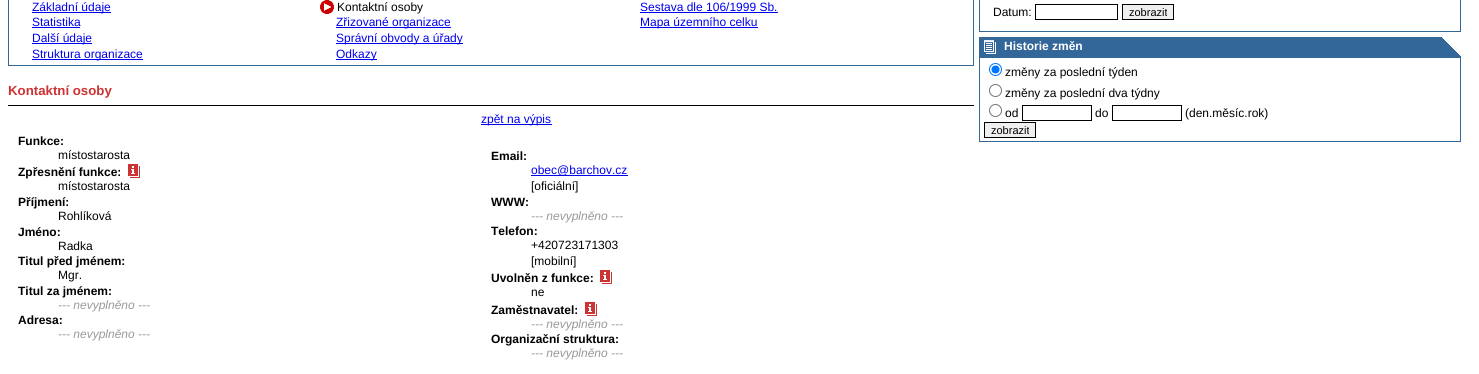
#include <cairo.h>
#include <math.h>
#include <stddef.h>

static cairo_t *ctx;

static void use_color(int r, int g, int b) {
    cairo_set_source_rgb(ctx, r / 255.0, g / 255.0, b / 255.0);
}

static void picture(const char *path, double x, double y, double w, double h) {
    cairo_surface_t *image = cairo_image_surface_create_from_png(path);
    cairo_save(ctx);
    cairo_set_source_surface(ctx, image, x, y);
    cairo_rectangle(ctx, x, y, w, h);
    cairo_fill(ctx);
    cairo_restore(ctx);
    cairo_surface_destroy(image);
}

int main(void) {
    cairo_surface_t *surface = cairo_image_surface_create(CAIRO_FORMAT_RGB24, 1479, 374);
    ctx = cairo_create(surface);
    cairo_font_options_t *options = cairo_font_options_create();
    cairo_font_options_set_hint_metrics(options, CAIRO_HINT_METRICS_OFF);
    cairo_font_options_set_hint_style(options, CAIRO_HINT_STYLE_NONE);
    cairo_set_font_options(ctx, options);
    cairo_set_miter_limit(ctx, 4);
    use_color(255, 255, 255);
    cairo_paint(ctx);
    cairo_rectangle(ctx, 8.5, -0.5, 965, 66);
    use_color(51, 102, 153);
    cairo_set_line_width(ctx, 1);
    cairo_stroke(ctx);
    use_color(0, 0, 238);
    cairo_rectangle(ctx, 32, 12, 79, 1);
    cairo_fill(ctx);
    cairo_select_font_face(ctx, "Liberation Sans", CAIRO_FONT_SLANT_NORMAL, CAIRO_FONT_WEIGHT_NORMAL);
    cairo_set_font_size(ctx, 12);
    cairo_move_to(ctx, 32, 11);
    cairo_show_text(ctx, "Základní údaje");
    cairo_move_to(ctx, 32, 26);
    cairo_show_text(ctx, "Statistika");
    cairo_rectangle(ctx, 32, 27, 48, 1);
    cairo_fill(ctx);
    cairo_rectangle(ctx, 32, 43, 60, 1);
    cairo_fill(ctx);
    cairo_move_to(ctx, 32, 42);
    cairo_show_text(ctx, "Další údaje");
    cairo_rectangle(ctx, 32, 59, 111, 1);
    cairo_fill(ctx);
    cairo_move_to(ctx, 32, 58);
    cairo_show_text(ctx, "Struktura organizace");
    picture("img1.png", 320, 0, 14, 14);
    use_color(0, 0, 0);
    cairo_move_to(ctx, 337, 11);
    cairo_show_text(ctx, "Kontaktní osoby");
    use_color(0, 0, 238);
    cairo_rectangle(ctx, 336, 27, 115, 1);
    cairo_fill(ctx);
    cairo_move_to(ctx, 336, 26);
    cairo_show_text(ctx, "Zřizované organizace");
    cairo_rectangle(ctx, 336, 43, 127, 1);
    cairo_fill(ctx);
    cairo_move_to(ctx, 336, 42);
    cairo_show_text(ctx, "Správní obvody a úřady");
    cairo_rectangle(ctx, 336, 59, 41, 1);
    cairo_fill(ctx);
    cairo_move_to(ctx, 336, 58);
    cairo_show_text(ctx, "Odkazy");
    cairo_move_to(ctx, 640, 11);
    cairo_show_text(ctx, "Sestava dle 106/1999 Sb.");
    cairo_rectangle(ctx, 640, 12, 138, 1);
    cairo_fill(ctx);
    cairo_rectangle(ctx, 640, 27, 118, 1);
    cairo_fill(ctx);
    cairo_move_to(ctx, 640, 26);
    cairo_show_text(ctx, "Mapa územního celku");
    cairo_select_font_face(ctx, "Liberation Sans", CAIRO_FONT_SLANT_NORMAL, CAIRO_FONT_WEIGHT_BOLD);
    cairo_set_font_size(ctx, 13.25);
    use_color(204, 51, 51);
    cairo_move_to(ctx, 8, 95);
    cairo_show_text(ctx, "Kontaktní osoby");
    use_color(0, 0, 0);
    cairo_rectangle(ctx, 8, 105, 966, 1);
    cairo_fill(ctx);
    use_color(0, 0, 238);
    cairo_rectangle(ctx, 481, 124, 71, 1);
    cairo_fill(ctx);
    cairo_select_font_face(ctx, "Liberation Sans", CAIRO_FONT_SLANT_NORMAL, CAIRO_FONT_WEIGHT_NORMAL);
    cairo_set_font_size(ctx, 12);
    cairo_move_to(ctx, 481, 123);
    cairo_show_text(ctx, "zpět na výpis");
    cairo_select_font_face(ctx, "Liberation Sans", CAIRO_FONT_SLANT_NORMAL, CAIRO_FONT_WEIGHT_BOLD);
    use_color(0, 0, 0);
    cairo_move_to(ctx, 18, 145);
    cairo_show_text(ctx, "Funkce:");
    cairo_select_font_face(ctx, "Liberation Sans", CAIRO_FONT_SLANT_NORMAL, CAIRO_FONT_WEIGHT_NORMAL);
    cairo_move_to(ctx, 58, 159);
    cairo_show_text(ctx, "místostarosta");
    cairo_select_font_face(ctx, "Liberation Sans", CAIRO_FONT_SLANT_NORMAL, CAIRO_FONT_WEIGHT_BOLD);
    cairo_move_to(ctx, 18, 176);
    cairo_show_text(ctx, "Zpřesnění funkce:");
    picture("img2.png", 128, 164, 12, 14);
    cairo_select_font_face(ctx, "Liberation Sans", CAIRO_FONT_SLANT_NORMAL, CAIRO_FONT_WEIGHT_NORMAL);
    cairo_move_to(ctx, 58, 190);
    cairo_show_text(ctx, "místostarosta");
    cairo_select_font_face(ctx, "Liberation Sans", CAIRO_FONT_SLANT_NORMAL, CAIRO_FONT_WEIGHT_BOLD);
    cairo_move_to(ctx, 18, 206);
    cairo_show_text(ctx, "Příjmení:");
    cairo_select_font_face(ctx, "Liberation Sans", CAIRO_FONT_SLANT_NORMAL, CAIRO_FONT_WEIGHT_NORMAL);
    cairo_move_to(ctx, 58, 220);
    cairo_show_text(ctx, "Rohlíková");
    cairo_select_font_face(ctx, "Liberation Sans", CAIRO_FONT_SLANT_NORMAL, CAIRO_FONT_WEIGHT_BOLD);
    cairo_move_to(ctx, 18, 236);
    cairo_show_text(ctx, "Jméno:");
    cairo_select_font_face(ctx, "Liberation Sans", CAIRO_FONT_SLANT_NORMAL, CAIRO_FONT_WEIGHT_NORMAL);
    cairo_move_to(ctx, 58, 250);
    cairo_show_text(ctx, "Radka");
    cairo_select_font_face(ctx, "Liberation Sans", CAIRO_FONT_SLANT_NORMAL, CAIRO_FONT_WEIGHT_BOLD);
    cairo_move_to(ctx, 18, 265);
    cairo_show_text(ctx, "Titul před jménem:");
    cairo_select_font_face(ctx, "Liberation Sans", CAIRO_FONT_SLANT_NORMAL, CAIRO_FONT_WEIGHT_NORMAL);
    cairo_move_to(ctx, 58, 279);
    cairo_show_text(ctx, "Mgr.");
    cairo_select_font_face(ctx, "Liberation Sans", CAIRO_FONT_SLANT_NORMAL, CAIRO_FONT_WEIGHT_BOLD);
    cairo_move_to(ctx, 18, 295);
    cairo_show_text(ctx, "Titul za jménem:");
    cairo_select_font_face(ctx, "Liberation Sans", CAIRO_FONT_SLANT_ITALIC, CAIRO_FONT_WEIGHT_NORMAL);
    use_color(153, 153, 153);
    cairo_move_to(ctx, 58, 309);
    cairo_show_text(ctx, "--- nevyplněno ---");
    cairo_select_font_face(ctx, "Liberation Sans", CAIRO_FONT_SLANT_NORMAL, CAIRO_FONT_WEIGHT_BOLD);
    use_color(0, 0, 0);
    cairo_move_to(ctx, 18, 324);
    cairo_show_text(ctx, "Adresa:");
    cairo_select_font_face(ctx, "Liberation Sans", CAIRO_FONT_SLANT_ITALIC, CAIRO_FONT_WEIGHT_NORMAL);
    use_color(153, 153, 153);
    cairo_move_to(ctx, 58, 338);
    cairo_show_text(ctx, "--- nevyplněno ---");
    cairo_select_font_face(ctx, "Liberation Sans", CAIRO_FONT_SLANT_NORMAL, CAIRO_FONT_WEIGHT_BOLD);
    use_color(0, 0, 0);
    cairo_move_to(ctx, 491, 160);
    cairo_show_text(ctx, "Email:");
    use_color(0, 0, 238);
    cairo_rectangle(ctx, 531, 175, 97, 1);
    cairo_fill(ctx);
    cairo_select_font_face(ctx, "Liberation Sans", CAIRO_FONT_SLANT_NORMAL, CAIRO_FONT_WEIGHT_NORMAL);
    cairo_move_to(ctx, 531, 174);
    cairo_show_text(ctx, "obec@barchov.cz");
    use_color(0, 0, 0);
    cairo_move_to(ctx, 531, 190);
    cairo_show_text(ctx, "[oficiální]");
    cairo_select_font_face(ctx, "Liberation Sans", CAIRO_FONT_SLANT_NORMAL, CAIRO_FONT_WEIGHT_BOLD);
    cairo_move_to(ctx, 491, 206);
    cairo_show_text(ctx, "WWW:");
    cairo_select_font_face(ctx, "Liberation Sans", CAIRO_FONT_SLANT_ITALIC, CAIRO_FONT_WEIGHT_NORMAL);
    use_color(153, 153, 153);
    cairo_move_to(ctx, 531, 220);
    cairo_show_text(ctx, "--- nevyplněno ---");
    cairo_select_font_face(ctx, "Liberation Sans", CAIRO_FONT_SLANT_NORMAL, CAIRO_FONT_WEIGHT_BOLD);
    use_color(0, 0, 0);
    cairo_move_to(ctx, 491, 235);
    cairo_show_text(ctx, "Telefon:");
    cairo_select_font_face(ctx, "Liberation Sans", CAIRO_FONT_SLANT_NORMAL, CAIRO_FONT_WEIGHT_NORMAL);
    cairo_move_to(ctx, 531, 249);
    cairo_show_text(ctx, "+420723171303");
    cairo_move_to(ctx, 531, 265);
    cairo_show_text(ctx, "[mobilní]");
    cairo_select_font_face(ctx, "Liberation Sans", CAIRO_FONT_SLANT_NORMAL, CAIRO_FONT_WEIGHT_BOLD);
    cairo_move_to(ctx, 491, 282);
    cairo_show_text(ctx, "Uvolněn z funkce:");
    picture("img2.png", 600, 270, 12, 14);
    cairo_select_font_face(ctx, "Liberation Sans", CAIRO_FONT_SLANT_NORMAL, CAIRO_FONT_WEIGHT_NORMAL);
    cairo_move_to(ctx, 531, 296);
    cairo_show_text(ctx, "ne");
    cairo_select_font_face(ctx, "Liberation Sans", CAIRO_FONT_SLANT_NORMAL, CAIRO_FONT_WEIGHT_BOLD);
    cairo_move_to(ctx, 491, 314);
    cairo_show_text(ctx, "Zaměstnavatel:");
    picture("img2.png", 585, 302, 12, 14);
    cairo_select_font_face(ctx, "Liberation Sans", CAIRO_FONT_SLANT_ITALIC, CAIRO_FONT_WEIGHT_NORMAL);
    use_color(153, 153, 153);
    cairo_move_to(ctx, 531, 328);
    cairo_show_text(ctx, "--- nevyplněno ---");
    cairo_select_font_face(ctx, "Liberation Sans", CAIRO_FONT_SLANT_NORMAL, CAIRO_FONT_WEIGHT_BOLD);
    use_color(0, 0, 0);
    cairo_move_to(ctx, 491, 343);
    cairo_show_text(ctx, "Organizační struktura:");
    cairo_select_font_face(ctx, "Liberation Sans", CAIRO_FONT_SLANT_ITALIC, CAIRO_FONT_WEIGHT_NORMAL);
    use_color(153, 153, 153);
    cairo_move_to(ctx, 531, 357);
    cairo_show_text(ctx, "--- nevyplněno ---");
    cairo_rectangle(ctx, 979.5, -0.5, 481, 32);
    use_color(51, 102, 153);
    cairo_stroke(ctx);
    cairo_select_font_face(ctx, "Liberation Sans", CAIRO_FONT_SLANT_NORMAL, CAIRO_FONT_WEIGHT_NORMAL);
    use_color(0, 0, 0);
    cairo_move_to(ctx, 993, 16);
    cairo_show_text(ctx, "Datum:");
    cairo_rectangle(ctx, 1035.5, 4.5, 82, 15);
    cairo_stroke(ctx);
    use_color(239, 239, 239);
    cairo_rectangle(ctx, 1122.5, 4.5, 51, 15);
    cairo_fill_preserve(ctx);
    use_color(0, 0, 0);
    cairo_stroke(ctx);
    cairo_set_font_size(ctx, 11);
    cairo_move_to(ctx, 1129, 16);
    cairo_show_text(ctx, "zobrazit");
    use_color(51, 102, 153);
    cairo_rectangle(ctx, 979, 37, 482, 20);
    cairo_fill(ctx);
    picture("img3.png", 1442, 37, 19, 19);
    picture("img4.png", 984, 40, 12, 14);
    cairo_select_font_face(ctx, "Liberation Sans", CAIRO_FONT_SLANT_NORMAL, CAIRO_FONT_WEIGHT_BOLD);
    cairo_set_font_size(ctx, 12);
    use_color(255, 255, 255);
    cairo_move_to(ctx, 1004, 50);
    cairo_show_text(ctx, "Historie změn");
    cairo_rectangle(ctx, 979.5, 57.5, 481, 84);
    use_color(51, 102, 153);
    cairo_stroke(ctx);
    cairo_arc(ctx, 995.5, 69.5, 6, 0, 2 * M_PI);
    use_color(0, 117, 255);
    cairo_stroke(ctx);
    cairo_arc(ctx, 995.5, 69.5, 4, 0, 2 * M_PI);
    cairo_fill(ctx);
    cairo_select_font_face(ctx, "Liberation Sans", CAIRO_FONT_SLANT_NORMAL, CAIRO_FONT_WEIGHT_NORMAL);
    use_color(0, 0, 0);
    cairo_move_to(ctx, 1005, 76);
    cairo_show_text(ctx, "změny za poslední týden");
    cairo_new_path(ctx);
    cairo_arc(ctx, 995.5, 90.5, 6, 0, 2 * M_PI);
    use_color(118, 118, 118);
    cairo_stroke(ctx);
    use_color(0, 0, 0);
    cairo_move_to(ctx, 1005, 97);
    cairo_show_text(ctx, "změny za poslední dva týdny");
    cairo_new_path(ctx);
    cairo_arc(ctx, 995.5, 110.5, 6, 0, 2 * M_PI);
    use_color(118, 118, 118);
    cairo_stroke(ctx);
    use_color(0, 0, 0);
    cairo_move_to(ctx, 1005, 117);
    cairo_show_text(ctx, "od");
    cairo_rectangle(ctx, 1022.5, 105.5, 69, 15);
    cairo_stroke(ctx);
    cairo_move_to(ctx, 1095, 117);
    cairo_show_text(ctx, "do");
    cairo_rectangle(ctx, 1112.5, 105.5, 69, 15);
    cairo_stroke(ctx);
    cairo_move_to(ctx, 1185, 117);
    cairo_show_text(ctx, "(den.měsíc.rok)");
    use_color(239, 239, 239);
    cairo_rectangle(ctx, 984.5, 122.5, 51, 15);
    cairo_fill_preserve(ctx);
    use_color(0, 0, 0);
    cairo_stroke(ctx);
    cairo_set_font_size(ctx, 11);
    cairo_move_to(ctx, 991, 134);
    cairo_show_text(ctx, "zobrazit");
    cairo_surface_write_to_png(surface, "result.png");
    cairo_font_options_destroy(options);
    cairo_destroy(ctx);
    cairo_surface_destroy(surface);
    return 0;
}
